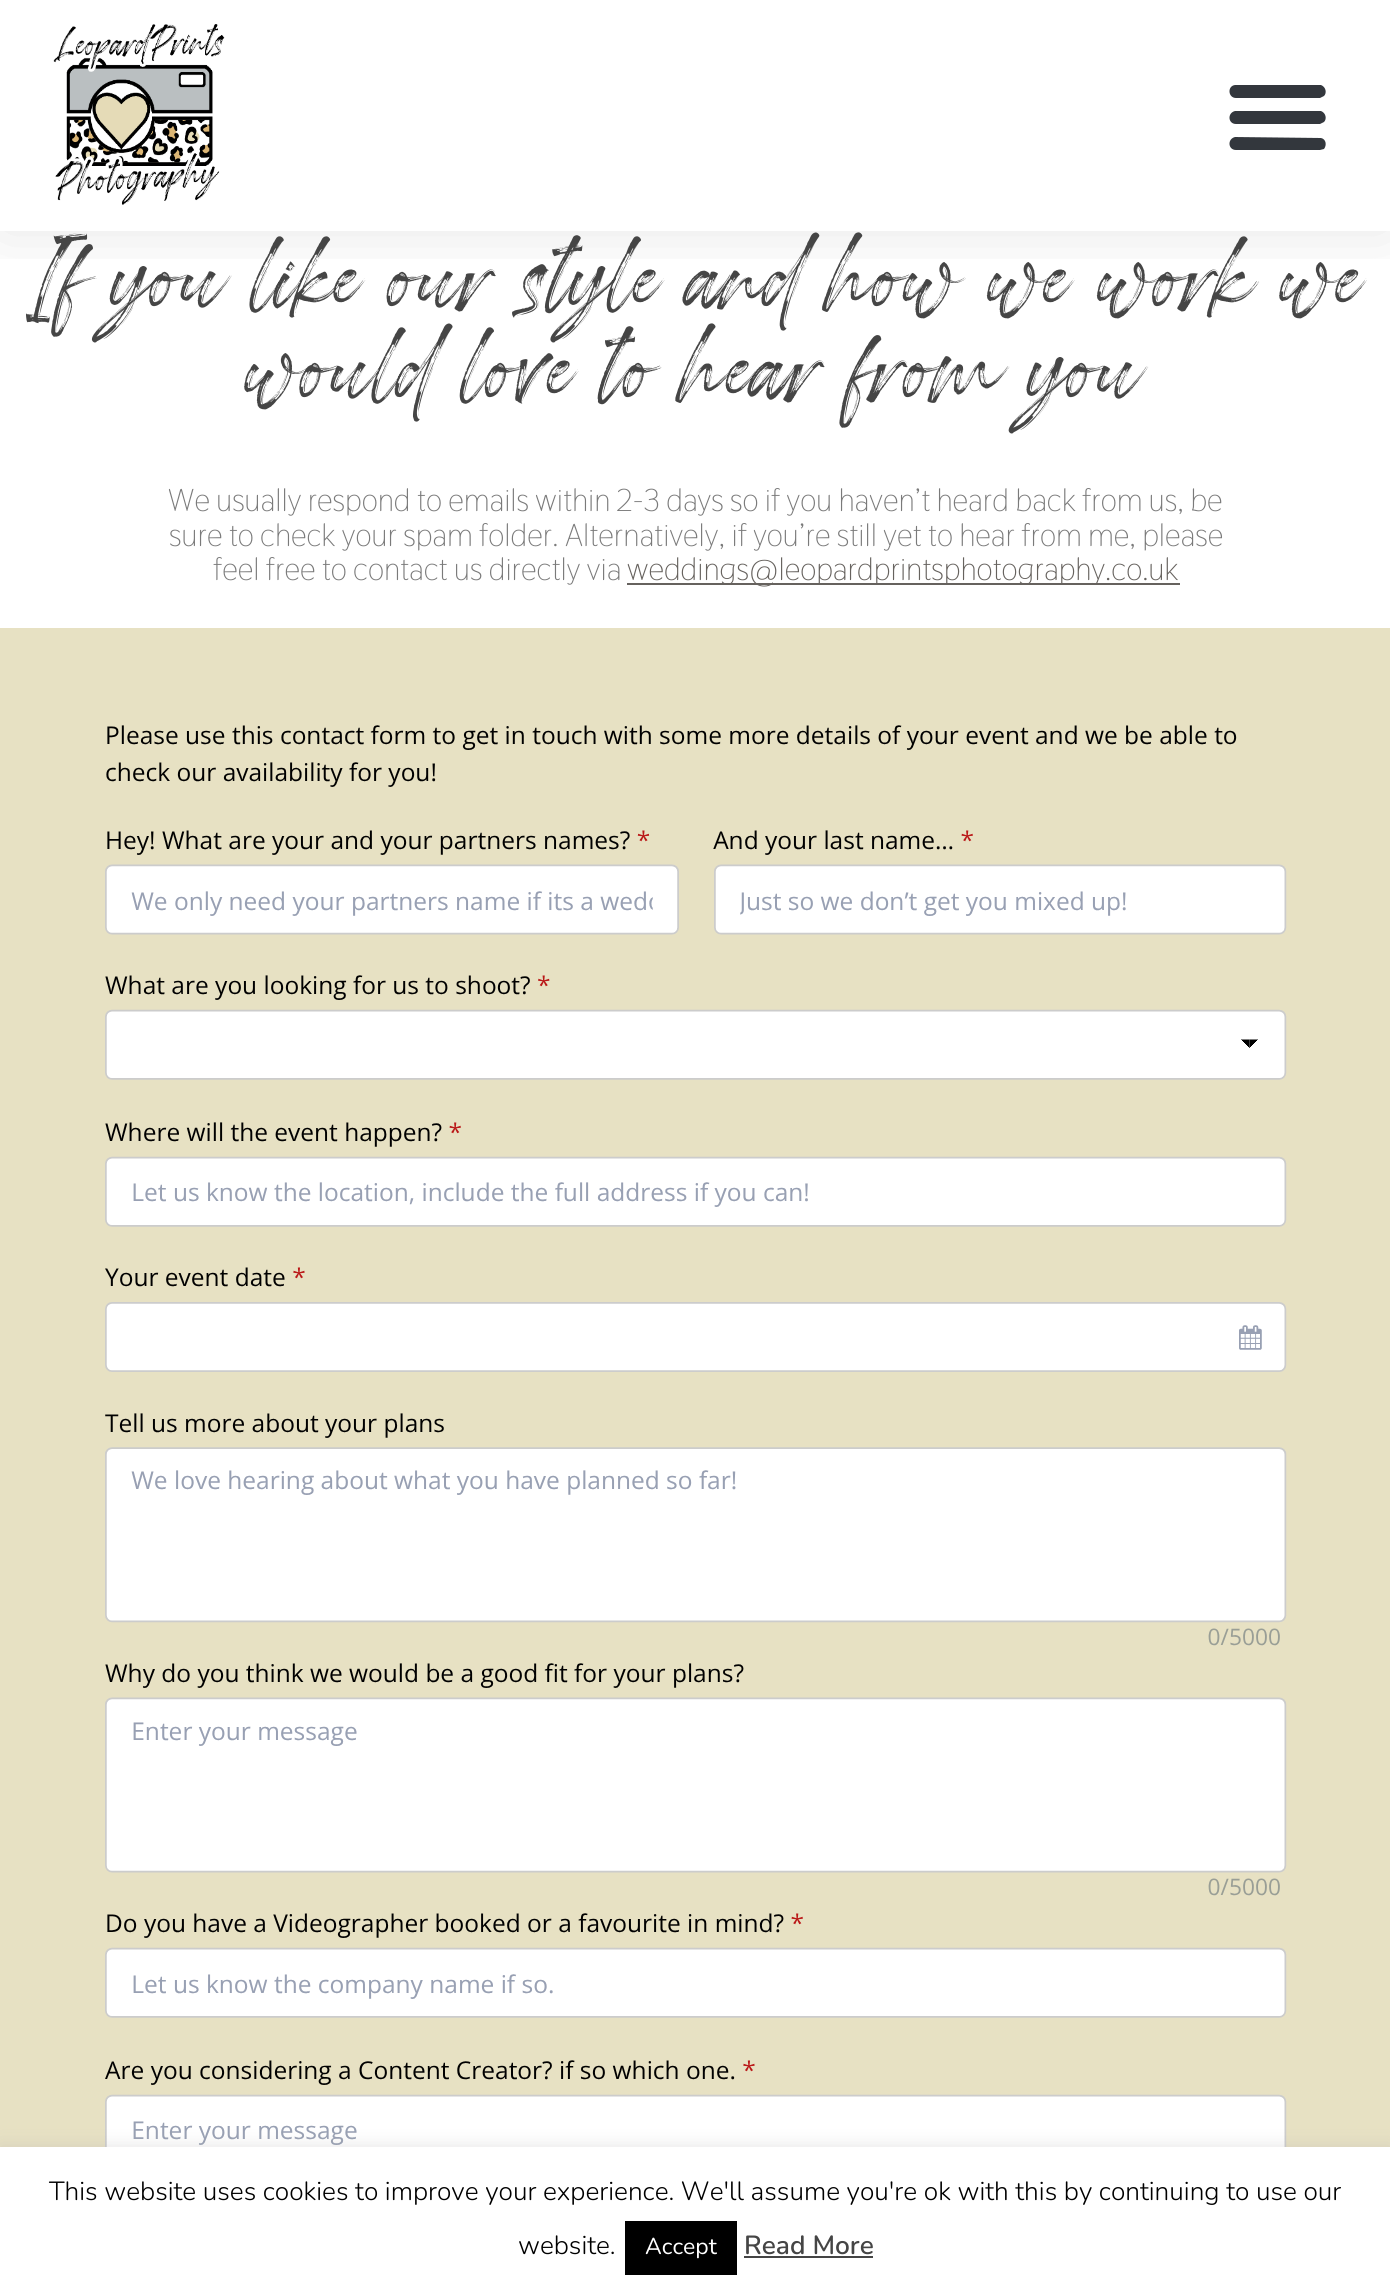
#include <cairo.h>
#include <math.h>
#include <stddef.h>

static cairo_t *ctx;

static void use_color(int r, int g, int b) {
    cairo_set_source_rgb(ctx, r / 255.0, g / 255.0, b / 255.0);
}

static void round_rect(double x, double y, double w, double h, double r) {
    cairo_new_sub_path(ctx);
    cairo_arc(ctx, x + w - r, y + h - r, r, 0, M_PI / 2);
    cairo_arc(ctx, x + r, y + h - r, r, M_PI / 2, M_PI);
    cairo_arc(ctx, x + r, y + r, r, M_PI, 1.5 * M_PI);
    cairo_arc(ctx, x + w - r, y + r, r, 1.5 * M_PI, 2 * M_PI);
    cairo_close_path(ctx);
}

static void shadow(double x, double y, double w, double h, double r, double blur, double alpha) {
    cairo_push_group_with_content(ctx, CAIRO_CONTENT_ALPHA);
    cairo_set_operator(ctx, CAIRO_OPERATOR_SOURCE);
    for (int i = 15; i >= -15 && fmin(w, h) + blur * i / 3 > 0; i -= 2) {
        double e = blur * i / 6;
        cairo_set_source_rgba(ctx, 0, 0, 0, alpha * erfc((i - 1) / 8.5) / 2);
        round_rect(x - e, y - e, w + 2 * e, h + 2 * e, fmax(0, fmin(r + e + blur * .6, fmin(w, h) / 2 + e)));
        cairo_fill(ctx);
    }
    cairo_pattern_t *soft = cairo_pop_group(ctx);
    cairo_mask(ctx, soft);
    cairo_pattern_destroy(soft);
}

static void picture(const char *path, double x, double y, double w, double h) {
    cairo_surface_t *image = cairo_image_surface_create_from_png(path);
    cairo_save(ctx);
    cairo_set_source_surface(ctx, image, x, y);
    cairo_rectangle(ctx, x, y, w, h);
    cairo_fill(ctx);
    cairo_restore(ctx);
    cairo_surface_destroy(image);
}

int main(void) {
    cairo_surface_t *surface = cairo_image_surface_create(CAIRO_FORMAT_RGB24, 1390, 2295);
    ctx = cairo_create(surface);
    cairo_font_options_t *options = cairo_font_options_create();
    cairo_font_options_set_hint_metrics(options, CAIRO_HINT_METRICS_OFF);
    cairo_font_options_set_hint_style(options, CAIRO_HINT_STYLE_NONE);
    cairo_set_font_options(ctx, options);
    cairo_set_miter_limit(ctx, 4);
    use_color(255, 255, 255);
    cairo_paint(ctx);
    cairo_save(ctx);
    cairo_rectangle(ctx, 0, 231, 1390, 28);
    cairo_clip(ctx);
    use_color(0, 0, 0);
    shadow(0, 0, 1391, 231, 0, 33, 0.1);
    cairo_restore(ctx);
    picture("img1.png", 53, 24, 172, 181);
    use_color(51, 55, 61);
    cairo_new_path(ctx);
    cairo_move_to(ctx, 1236, 98);
    cairo_line_to(ctx, 1320, 98);
    cairo_line_to(ctx, 1324, 96);
    cairo_curve_to(ctx, 1327, 93, 1326, 87, 1321, 85);
    cairo_line_to(ctx, 1235, 85);
    cairo_curve_to(ctx, 1227, 86, 1228, 98, 1236, 98);
    cairo_close_path(ctx);
    cairo_move_to(ctx, 1236, 124);
    cairo_line_to(ctx, 1320, 124);
    cairo_line_to(ctx, 1324, 122);
    cairo_curve_to(ctx, 1327, 119, 1326, 113, 1321, 111);
    cairo_line_to(ctx, 1235, 111);
    cairo_curve_to(ctx, 1227, 113, 1228, 124, 1236, 124);
    cairo_close_path(ctx);
    cairo_move_to(ctx, 1236, 150);
    cairo_line_to(ctx, 1320, 150);
    cairo_line_to(ctx, 1324, 149);
    cairo_curve_to(ctx, 1327, 145, 1326, 139, 1321, 138);
    cairo_line_to(ctx, 1235, 137);
    cairo_curve_to(ctx, 1227, 139, 1228, 150, 1236, 150);
    cairo_close_path(ctx);
    cairo_fill(ctx);
    cairo_select_font_face(ctx, "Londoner", CAIRO_FONT_SLANT_NORMAL, CAIRO_FONT_WEIGHT_NORMAL);
    cairo_set_font_size(ctx, 113.75);
    use_color(69, 69, 69);
    cairo_move_to(ctx, 26, 322);
    cairo_show_text(ctx, "If you like our style and how we work we");
    cairo_move_to(ctx, 248, 413);
    cairo_show_text(ctx, "would love to hear from you");
    cairo_select_font_face(ctx, "Thasadith", CAIRO_FONT_SLANT_NORMAL, CAIRO_FONT_WEIGHT_NORMAL);
    cairo_set_font_size(ctx, 31.5);
    use_color(122, 122, 122);
    cairo_move_to(ctx, 168, 511);
    cairo_show_text(ctx, "We usually respond to emails within 2-3 days so if you haven’t heard back from us, be");
    cairo_move_to(ctx, 169, 546);
    cairo_show_text(ctx, "sure to check your spam folder. Alternatively, if you’re still yet to hear from me, please");
    cairo_move_to(ctx, 213, 580);
    cairo_show_text(ctx, "feel free to contact us directly via");
    use_color(102, 98, 94);
    cairo_rectangle(ctx, 627, 583, 553, 2);
    cairo_fill(ctx);
    cairo_move_to(ctx, 627, 580);
    cairo_show_text(ctx, "weddings@leopardprintsphotography.co.uk");
    use_color(231, 225, 195);
    cairo_rectangle(ctx, 0, 628, 1390, 1519);
    cairo_fill(ctx);
    picture("img2.png", 105, 725, 1182, 1422);
    use_color(172, 171, 171);
    shadow(0, 2146, 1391, 148, 0, 9, 0.3);
    use_color(255, 255, 255);
    cairo_rectangle(ctx, 0, 2147, 1390, 148);
    cairo_fill(ctx);
    cairo_select_font_face(ctx, "Nunito Light", CAIRO_FONT_SLANT_NORMAL, CAIRO_FONT_WEIGHT_NORMAL);
    cairo_set_font_size(ctx, 26.25);
    use_color(0, 0, 0);
    cairo_move_to(ctx, 49, 2200);
    cairo_show_text(ctx, "This website uses cookies to improve your experience. We'll assume you're ok with this by continuing to use our");
    cairo_move_to(ctx, 518, 2254);
    cairo_show_text(ctx, "website.");
    cairo_rectangle(ctx, 625, 2221, 112, 54);
    cairo_fill(ctx);
    cairo_select_font_face(ctx, "Nunito", CAIRO_FONT_SLANT_NORMAL, CAIRO_FONT_WEIGHT_NORMAL);
    cairo_set_font_size(ctx, 23);
    use_color(255, 255, 255);
    cairo_move_to(ctx, 645, 2254);
    cairo_show_text(ctx, "Accept");
    cairo_select_font_face(ctx, "Nunito SemiBold", CAIRO_FONT_SLANT_NORMAL, CAIRO_FONT_WEIGHT_NORMAL);
    cairo_set_font_size(ctx, 26.25);
    use_color(69, 69, 69);
    cairo_move_to(ctx, 744, 2254);
    cairo_show_text(ctx, "Read More");
    use_color(68, 68, 68);
    cairo_rectangle(ctx, 744, 2256, 129, 2);
    cairo_fill(ctx);
    cairo_surface_write_to_png(surface, "result.png");
    cairo_font_options_destroy(options);
    cairo_destroy(ctx);
    cairo_surface_destroy(surface);
    return 0;
}
